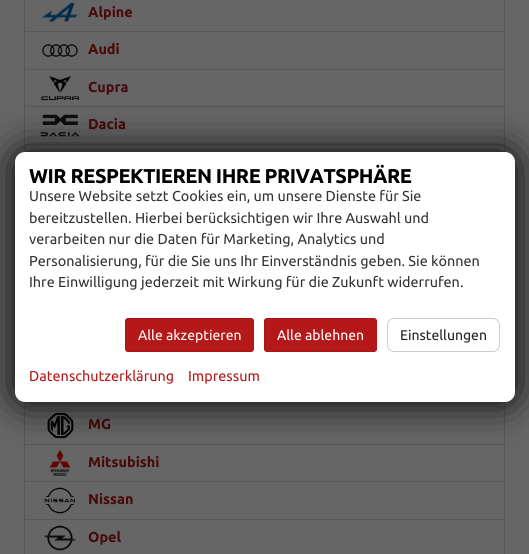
#include <cairo.h>
#include <math.h>
#include <stddef.h>

static cairo_t *ctx;

static void use_color(int r, int g, int b) {
    cairo_set_source_rgb(ctx, r / 255.0, g / 255.0, b / 255.0);
}

static void spaced_text(double x, double y, const char *s, double letter, double word) {
    cairo_move_to(ctx, x, y);
    while (*s) {
        char ch[5] = {0};
        int n = 0;
        do ch[n++] = *s++; while ((*s & 0xC0) == 0x80);
        cairo_show_text(ctx, ch);
        cairo_rel_move_to(ctx, letter + word * (*ch == ' '), 0);
    }
}

static void round_rect(double x, double y, double w, double h, double r) {
    cairo_new_sub_path(ctx);
    cairo_arc(ctx, x + w - r, y + h - r, r, 0, M_PI / 2);
    cairo_arc(ctx, x + r, y + h - r, r, M_PI / 2, M_PI);
    cairo_arc(ctx, x + r, y + r, r, M_PI, 1.5 * M_PI);
    cairo_arc(ctx, x + w - r, y + r, r, 1.5 * M_PI, 2 * M_PI);
    cairo_close_path(ctx);
}

static void shadow(double x, double y, double w, double h, double r, double blur, double alpha) {
    cairo_push_group_with_content(ctx, CAIRO_CONTENT_ALPHA);
    cairo_set_operator(ctx, CAIRO_OPERATOR_SOURCE);
    for (int i = 15; i >= -15 && fmin(w, h) + blur * i / 3 > 0; i -= 2) {
        double e = blur * i / 6;
        cairo_set_source_rgba(ctx, 0, 0, 0, alpha * erfc((i - 1) / 8.5) / 2);
        round_rect(x - e, y - e, w + 2 * e, h + 2 * e, fmax(0, fmin(r + e + blur * .6, fmin(w, h) / 2 + e)));
        cairo_fill(ctx);
    }
    cairo_pattern_t *soft = cairo_pop_group(ctx);
    cairo_mask(ctx, soft);
    cairo_pattern_destroy(soft);
}

static void picture(const char *path, double x, double y, double w, double h) {
    cairo_surface_t *image = cairo_image_surface_create_from_png(path);
    cairo_save(ctx);
    cairo_set_source_surface(ctx, image, x, y);
    cairo_rectangle(ctx, x, y, w, h);
    cairo_fill(ctx);
    cairo_restore(ctx);
    cairo_surface_destroy(image);
}

int main(void) {
    cairo_surface_t *surface = cairo_image_surface_create(CAIRO_FORMAT_RGB24, 529, 554);
    ctx = cairo_create(surface);
    cairo_font_options_t *options = cairo_font_options_create();
    cairo_font_options_set_hint_metrics(options, CAIRO_HINT_METRICS_OFF);
    cairo_font_options_set_hint_style(options, CAIRO_HINT_STYLE_NONE);
    cairo_set_font_options(ctx, options);
    cairo_set_miter_limit(ctx, 4);
    use_color(102, 102, 102);
    cairo_paint(ctx);
    cairo_rectangle(ctx, 24.5, -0.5, 480, 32);
    use_color(88, 88, 88);
    cairo_set_line_width(ctx, 1);
    cairo_stroke(ctx);
    picture("img1.png", 42, 2, 36, 21);
    cairo_select_font_face(ctx, "Ubuntu", CAIRO_FONT_SLANT_NORMAL, CAIRO_FONT_WEIGHT_BOLD);
    cairo_set_font_size(ctx, 14.4);
    use_color(72, 10, 10);
    cairo_move_to(ctx, 88, 17);
    cairo_show_text(ctx, "Alpine");
    cairo_rectangle(ctx, 24.5, 31.5, 480, 38);
    use_color(88, 88, 88);
    cairo_stroke(ctx);
    picture("img2.png", 42, 44, 36, 13);
    use_color(72, 10, 10);
    cairo_move_to(ctx, 88, 54);
    cairo_show_text(ctx, "Audi");
    cairo_rectangle(ctx, 24.5, 69.5, 480, 37);
    use_color(88, 88, 88);
    cairo_stroke(ctx);
    picture("img3.png", 41, 76, 38, 25);
    use_color(72, 10, 10);
    cairo_move_to(ctx, 88, 92);
    cairo_show_text(ctx, "Cupra");
    cairo_rectangle(ctx, 24.5, 106.5, 480, 38);
    use_color(88, 88, 88);
    cairo_stroke(ctx);
    picture("img4.png", 40, 114, 40, 23);
    use_color(72, 10, 10);
    cairo_move_to(ctx, 88, 129);
    cairo_show_text(ctx, "Dacia");
    cairo_rectangle(ctx, 24.5, 144.5, 480, 37);
    use_color(88, 88, 88);
    cairo_stroke(ctx);
    cairo_rectangle(ctx, 24.5, 369.5, 480, 37);
    cairo_stroke(ctx);
    cairo_rectangle(ctx, 24.5, 406.5, 480, 38);
    cairo_stroke(ctx);
    picture("img5.png", 47, 412, 27, 27);
    use_color(72, 10, 10);
    cairo_move_to(ctx, 88, 429);
    cairo_show_text(ctx, "MG");
    cairo_rectangle(ctx, 24.5, 444.5, 480, 37);
    use_color(88, 88, 88);
    cairo_stroke(ctx);
    picture("img6.png", 49, 450, 22, 26);
    use_color(72, 10, 10);
    cairo_move_to(ctx, 88, 467);
    cairo_show_text(ctx, "Mitsubishi");
    cairo_rectangle(ctx, 24.5, 481.5, 480, 38);
    use_color(88, 88, 88);
    cairo_stroke(ctx);
    picture("img7.png", 44, 487, 31, 27);
    use_color(72, 10, 10);
    cairo_move_to(ctx, 88, 504);
    cairo_show_text(ctx, "Nissan");
    cairo_rectangle(ctx, 24.5, 519.5, 480, 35);
    use_color(88, 88, 88);
    cairo_stroke(ctx);
    picture("img8.png", 44, 525, 32, 26);
    use_color(72, 10, 10);
    cairo_move_to(ctx, 88, 542);
    cairo_show_text(ctx, "Opel");
    use_color(0, 0, 0);
    shadow(15, 152, 500, 250, 10, 20, 1);
    use_color(255, 255, 255);
    round_rect(15, 152, 500, 250, 10);
    cairo_fill(ctx);
    cairo_set_font_size(ctx, 20);
    use_color(0, 0, 0);
    spaced_text(29, 183, "WIR RESPEKTIEREN IHRE PRIVATSPHÄRE", -0.5, 0);
    cairo_select_font_face(ctx, "Ubuntu", CAIRO_FONT_SLANT_NORMAL, CAIRO_FONT_WEIGHT_NORMAL);
    cairo_set_font_size(ctx, 14.4);
    use_color(51, 51, 51);
    cairo_move_to(ctx, 29, 201);
    cairo_show_text(ctx, "Unsere Website setzt Cookies ein, um unsere Dienste für Sie");
    cairo_move_to(ctx, 29, 223);
    cairo_show_text(ctx, "bereitzustellen. Hierbei berücksichtigen wir Ihre Auswahl und");
    cairo_move_to(ctx, 29, 244);
    cairo_show_text(ctx, "verarbeiten nur die Daten für Marketing, Analytics und");
    cairo_move_to(ctx, 29, 266);
    cairo_show_text(ctx, "Personalisierung, für die Sie uns Ihr Einverständnis geben. Sie können");
    cairo_move_to(ctx, 29, 287);
    cairo_show_text(ctx, "Ihre Einwilligung jederzeit mit Wirkung für die Zukunft widerrufen.");
    use_color(181, 24, 24);
    round_rect(125.5, 318.5, 128, 33, 2.5);
    cairo_fill_preserve(ctx);
    use_color(168, 22, 22);
    cairo_stroke(ctx);
    cairo_set_font_size(ctx, 14);
    use_color(255, 255, 255);
    cairo_move_to(ctx, 138, 340);
    cairo_show_text(ctx, "Alle akzeptieren");
    use_color(181, 24, 24);
    round_rect(264.5, 318.5, 112, 33, 2.5);
    cairo_fill_preserve(ctx);
    use_color(168, 22, 22);
    cairo_stroke(ctx);
    use_color(255, 255, 255);
    cairo_move_to(ctx, 277, 340);
    cairo_show_text(ctx, "Alle ablehnen");
    round_rect(387.5, 318.5, 112, 33, 6.5);
    use_color(204, 204, 204);
    cairo_stroke(ctx);
    use_color(34, 34, 34);
    cairo_move_to(ctx, 400, 340);
    cairo_show_text(ctx, "Einstellungen");
    cairo_set_font_size(ctx, 14.4);
    use_color(181, 24, 24);
    cairo_move_to(ctx, 29, 381);
    cairo_show_text(ctx, "Datenschutzerklärung");
    cairo_move_to(ctx, 188, 381);
    cairo_show_text(ctx, "Impressum");
    cairo_surface_write_to_png(surface, "result.png");
    cairo_font_options_destroy(options);
    cairo_destroy(ctx);
    cairo_surface_destroy(surface);
    return 0;
}
